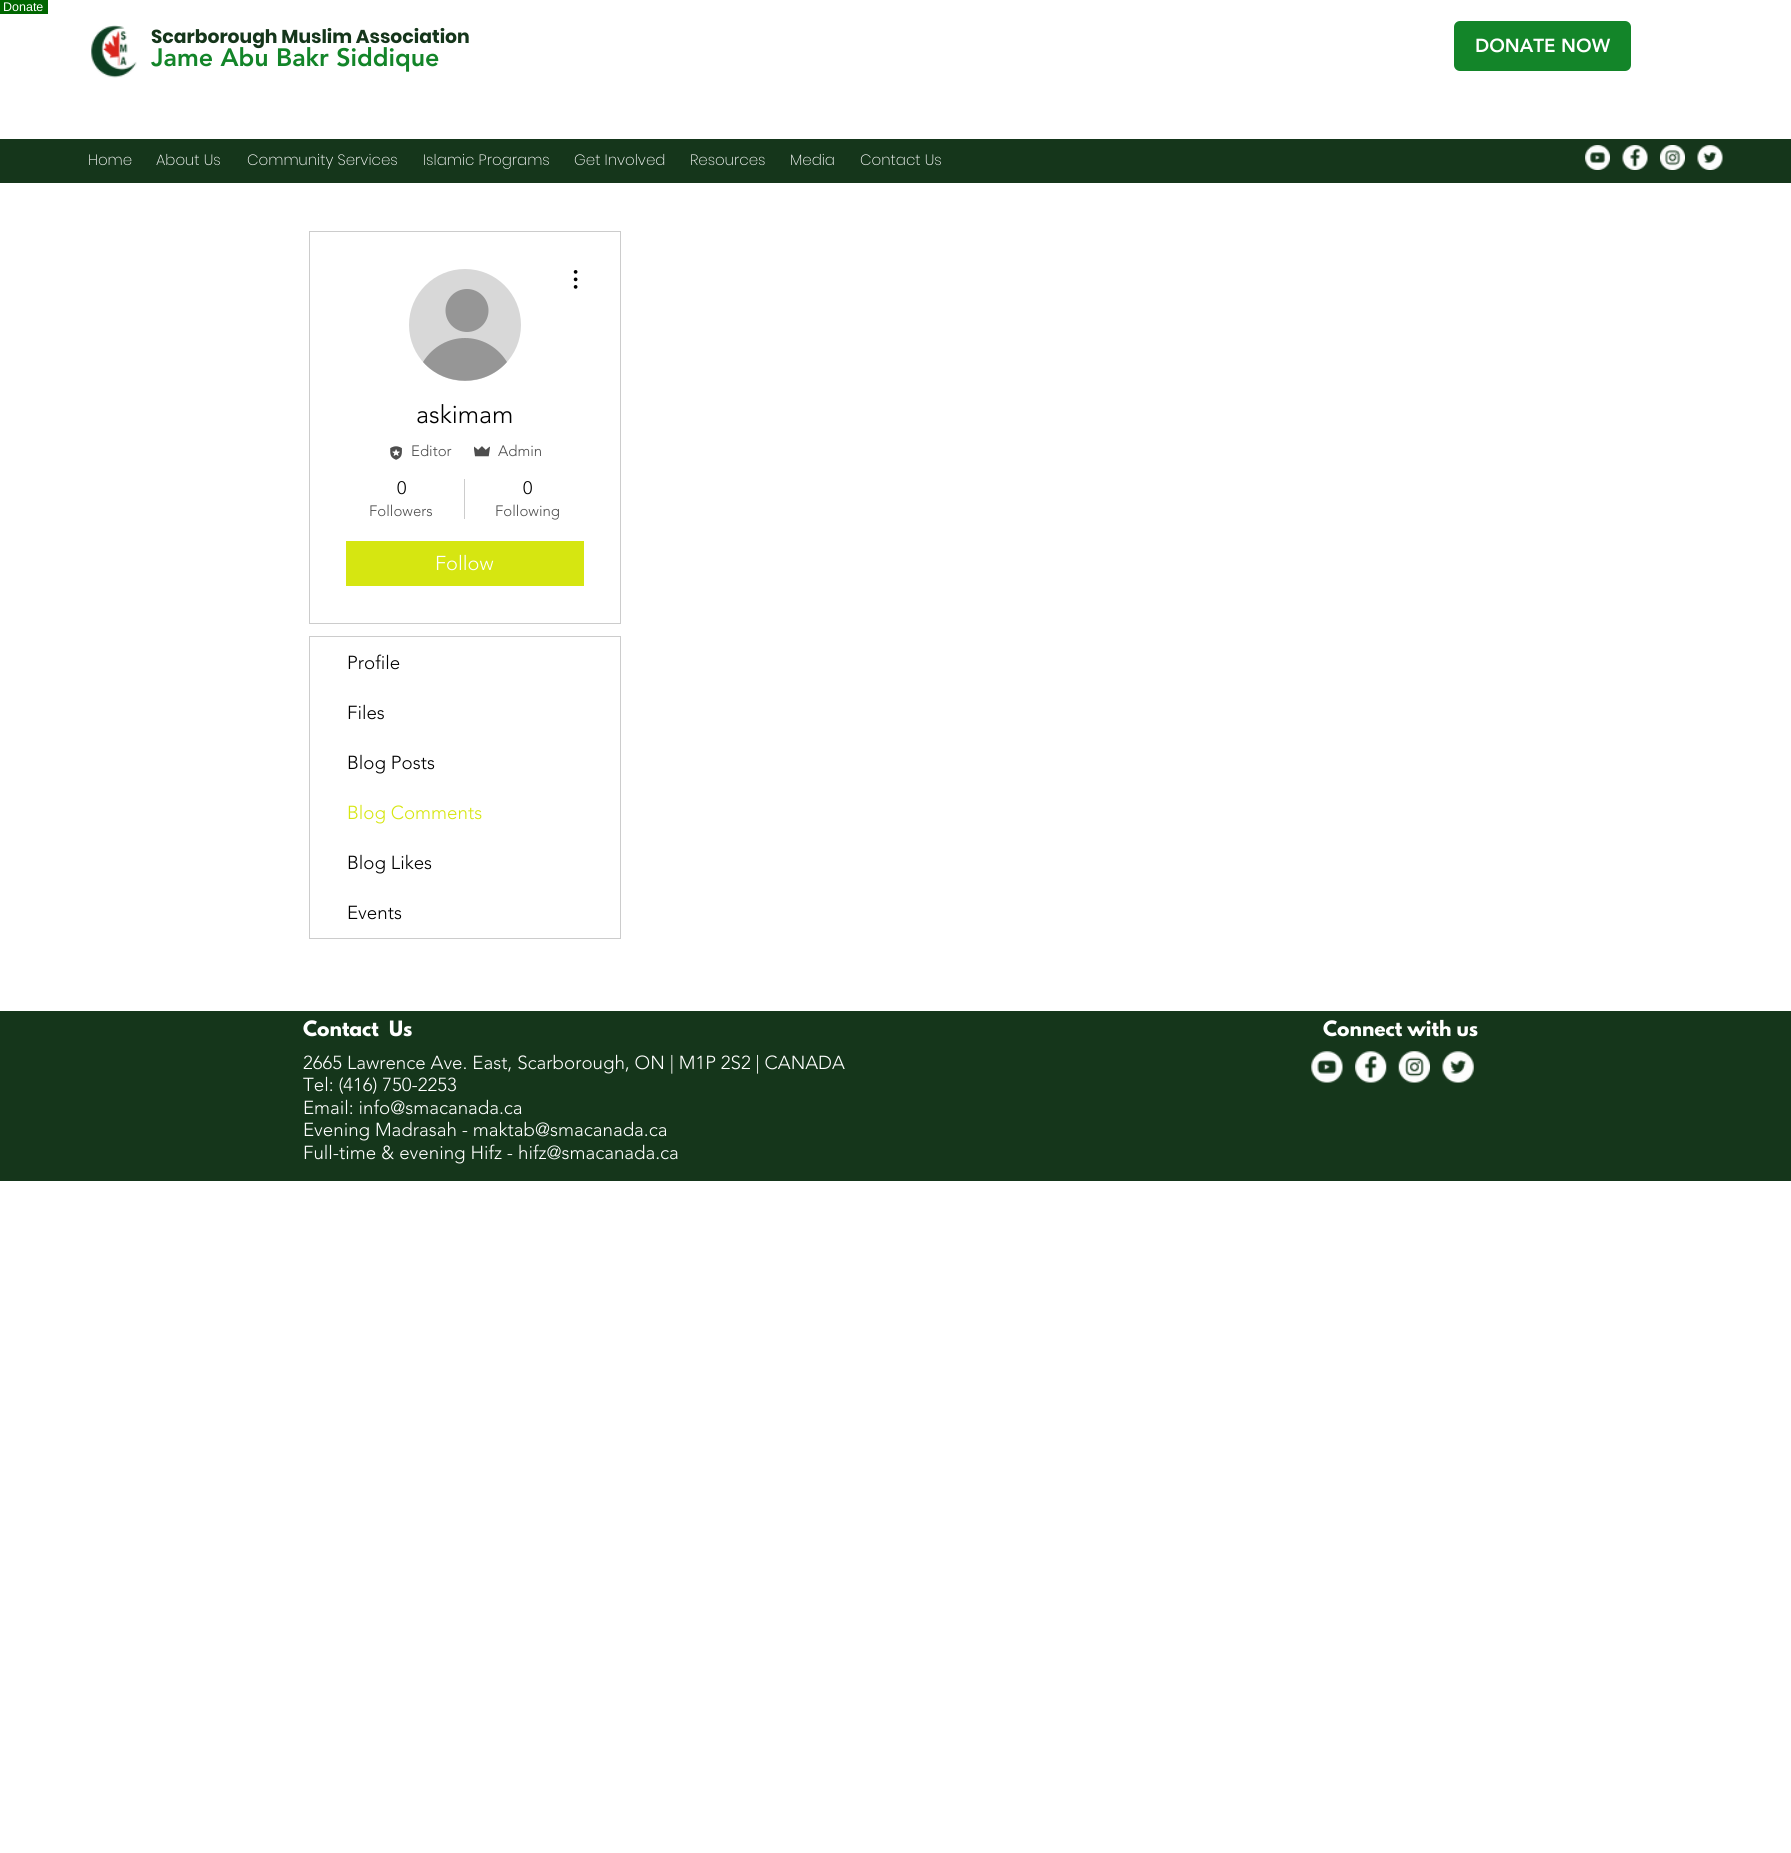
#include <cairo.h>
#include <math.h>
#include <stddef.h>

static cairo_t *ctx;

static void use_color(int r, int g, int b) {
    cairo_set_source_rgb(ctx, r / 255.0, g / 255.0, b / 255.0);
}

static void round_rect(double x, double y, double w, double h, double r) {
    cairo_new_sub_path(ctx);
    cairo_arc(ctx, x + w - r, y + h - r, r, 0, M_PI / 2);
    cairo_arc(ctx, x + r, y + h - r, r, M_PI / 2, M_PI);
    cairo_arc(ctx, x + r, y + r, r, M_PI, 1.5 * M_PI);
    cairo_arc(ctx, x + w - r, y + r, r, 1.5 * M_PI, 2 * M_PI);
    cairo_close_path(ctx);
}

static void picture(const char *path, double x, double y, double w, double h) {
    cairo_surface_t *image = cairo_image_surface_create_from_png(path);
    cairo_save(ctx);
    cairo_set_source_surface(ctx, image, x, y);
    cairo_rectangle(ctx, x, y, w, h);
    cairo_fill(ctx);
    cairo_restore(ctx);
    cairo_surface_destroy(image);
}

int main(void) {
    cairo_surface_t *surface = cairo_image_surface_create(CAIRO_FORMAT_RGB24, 1791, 1853);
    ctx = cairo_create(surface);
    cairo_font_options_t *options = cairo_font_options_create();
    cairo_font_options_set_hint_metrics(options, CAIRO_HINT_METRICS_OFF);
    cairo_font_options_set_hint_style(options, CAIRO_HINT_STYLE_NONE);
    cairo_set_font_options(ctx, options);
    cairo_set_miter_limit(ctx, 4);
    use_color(255, 255, 255);
    cairo_paint(ctx);
    use_color(0, 102, 0);
    cairo_rectangle(ctx, 0, 0, 48, 14);
    cairo_fill(ctx);
    cairo_select_font_face(ctx, "Liberation Sans", CAIRO_FONT_SLANT_NORMAL, CAIRO_FONT_WEIGHT_NORMAL);
    cairo_set_font_size(ctx, 12.5);
    use_color(255, 255, 255);
    cairo_move_to(ctx, 3, 11);
    cairo_show_text(ctx, "Donate");
    picture("img1.png", 91, 25, 46, 53);
    cairo_select_font_face(ctx, "Poppins", CAIRO_FONT_SLANT_NORMAL, CAIRO_FONT_WEIGHT_BOLD);
    cairo_set_font_size(ctx, 18.75);
    use_color(21, 54, 27);
    cairo_move_to(ctx, 151, 43);
    cairo_show_text(ctx, "Scarborough Muslim Association");
    cairo_select_font_face(ctx, "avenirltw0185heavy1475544 Black", CAIRO_FONT_SLANT_NORMAL, CAIRO_FONT_WEIGHT_NORMAL);
    cairo_set_font_size(ctx, 25);
    use_color(19, 133, 41);
    cairo_move_to(ctx, 151, 66);
    cairo_show_text(ctx, "Jame Abu Bakr Siddique");
    round_rect(1454, 21, 177, 50, 6);
    cairo_fill(ctx);
    cairo_set_font_size(ctx, 18.75);
    use_color(255, 255, 255);
    cairo_move_to(ctx, 1475, 52);
    cairo_show_text(ctx, "DONATE NOW");
    use_color(21, 54, 27);
    cairo_rectangle(ctx, 0, 139, 1791, 44);
    cairo_fill(ctx);
    cairo_select_font_face(ctx, "Poppins ExtraLight", CAIRO_FONT_SLANT_NORMAL, CAIRO_FONT_WEIGHT_NORMAL);
    cairo_set_font_size(ctx, 15);
    use_color(255, 255, 255);
    cairo_move_to(ctx, 88, 165);
    cairo_show_text(ctx, "Home");
    cairo_move_to(ctx, 156, 165);
    cairo_show_text(ctx, "About Us");
    cairo_move_to(ctx, 247, 165);
    cairo_show_text(ctx, "Community Services");
    cairo_move_to(ctx, 423, 165);
    cairo_show_text(ctx, "Islamic Programs");
    cairo_move_to(ctx, 574, 165);
    cairo_show_text(ctx, "Get Involved");
    cairo_move_to(ctx, 690, 165);
    cairo_show_text(ctx, "Resources");
    cairo_move_to(ctx, 790, 165);
    cairo_show_text(ctx, "Media");
    cairo_move_to(ctx, 860, 165);
    cairo_show_text(ctx, "Contact Us");
    picture("img2.png", 1585, 145, 25, 25);
    picture("img3.png", 1622, 145, 26, 25);
    picture("img4.png", 1660, 145, 25, 25);
    picture("img5.png", 1697, 145, 26, 25);
    cairo_rectangle(ctx, 309.5, 231.5, 311, 392);
    use_color(204, 204, 204);
    cairo_set_line_width(ctx, 1);
    cairo_stroke(ctx);
    use_color(216, 216, 216);
    cairo_arc(ctx, 465, 325, 56, 0, 2 * M_PI);
    cairo_fill(ctx);
    use_color(150, 150, 150);
    cairo_arc(ctx, 467, 310.5, 21.5, 0, 2 * M_PI);
    cairo_fill(ctx);
    cairo_new_path(ctx);
    cairo_move_to(ctx, 507, 362);
    cairo_curve_to(ctx, 485, 387, 445, 387, 423, 362);
    cairo_curve_to(ctx, 443, 330, 487, 330, 507, 362);
    cairo_close_path(ctx);
    cairo_fill(ctx);
    picture("img6.png", 573, 270, 5, 19);
    cairo_select_font_face(ctx, "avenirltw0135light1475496 Light", CAIRO_FONT_SLANT_NORMAL, CAIRO_FONT_WEIGHT_NORMAL);
    cairo_set_font_size(ctx, 25);
    use_color(0, 0, 0);
    cairo_move_to(ctx, 416, 423);
    cairo_show_text(ctx, "askimam");
    picture("img7.png", 390, 446, 12, 14);
    cairo_set_font_size(ctx, 15);
    use_color(77, 77, 77);
    cairo_move_to(ctx, 411, 456);
    cairo_show_text(ctx, "Editor");
    picture("img8.png", 474, 446, 16, 11);
    cairo_move_to(ctx, 498, 456);
    cairo_show_text(ctx, "Admin");
    cairo_set_font_size(ctx, 18);
    use_color(0, 0, 0);
    cairo_move_to(ctx, 397, 494);
    cairo_show_text(ctx, "0");
    cairo_set_font_size(ctx, 15);
    use_color(77, 77, 77);
    cairo_move_to(ctx, 369, 516);
    cairo_show_text(ctx, "Followers");
    use_color(204, 204, 204);
    cairo_rectangle(ctx, 464, 479, 1, 40);
    cairo_fill(ctx);
    cairo_set_font_size(ctx, 18);
    use_color(0, 0, 0);
    cairo_move_to(ctx, 523, 494);
    cairo_show_text(ctx, "0");
    cairo_set_font_size(ctx, 15);
    use_color(77, 77, 77);
    cairo_move_to(ctx, 495, 516);
    cairo_show_text(ctx, "Following");
    use_color(214, 230, 17);
    cairo_rectangle(ctx, 346, 541, 238, 45);
    cairo_fill(ctx);
    cairo_set_font_size(ctx, 20);
    use_color(255, 255, 255);
    cairo_move_to(ctx, 435, 570);
    cairo_show_text(ctx, "Follow");
    cairo_rectangle(ctx, 309.5, 636.5, 311, 302);
    use_color(204, 204, 204);
    cairo_stroke(ctx);
    cairo_set_font_size(ctx, 18.75);
    use_color(0, 0, 0);
    cairo_move_to(ctx, 347, 669);
    cairo_show_text(ctx, "Profile");
    cairo_move_to(ctx, 347, 719);
    cairo_show_text(ctx, "Files");
    cairo_move_to(ctx, 347, 769);
    cairo_show_text(ctx, "Blog Posts");
    use_color(214, 230, 17);
    cairo_move_to(ctx, 347, 819);
    cairo_show_text(ctx, "Blog Comments");
    use_color(0, 0, 0);
    cairo_move_to(ctx, 347, 869);
    cairo_show_text(ctx, "Blog Likes");
    cairo_move_to(ctx, 347, 919);
    cairo_show_text(ctx, "Events");
    use_color(21, 54, 27);
    cairo_rectangle(ctx, 0, 1011, 1791, 170);
    cairo_fill(ctx);
    cairo_select_font_face(ctx, "League Spartan", CAIRO_FONT_SLANT_NORMAL, CAIRO_FONT_WEIGHT_BOLD);
    use_color(255, 255, 255);
    cairo_move_to(ctx, 303, 1036);
    cairo_show_text(ctx, "Contact  Us");
    cairo_move_to(ctx, 1323, 1036);
    cairo_show_text(ctx, "Connect with us");
    cairo_select_font_face(ctx, "avenirltw0135light1475496 Light", CAIRO_FONT_SLANT_NORMAL, CAIRO_FONT_WEIGHT_NORMAL);
    cairo_move_to(ctx, 303, 1069);
    cairo_show_text(ctx, "2665 Lawrence Ave. East, Scarborough, ON | M1P 2S2 | CANADA");
    cairo_move_to(ctx, 303, 1091);
    cairo_show_text(ctx, "Tel: (416) 750-2253");
    cairo_move_to(ctx, 303, 1114);
    cairo_show_text(ctx, "Email: info@smacanada.ca");
    cairo_move_to(ctx, 303, 1136);
    cairo_show_text(ctx, "Evening Madrasah - maktab@smacanada.ca");
    cairo_move_to(ctx, 303, 1159);
    cairo_show_text(ctx, "Full-time & evening Hifz - hifz@smacanada.ca");
    picture("img9.png", 1311, 1051, 32, 32);
    picture("img10.png", 1355, 1051, 32, 32);
    picture("img11.png", 1398, 1051, 32, 32);
    picture("img12.png", 1442, 1051, 32, 32);
    cairo_surface_write_to_png(surface, "result.png");
    cairo_font_options_destroy(options);
    cairo_destroy(ctx);
    cairo_surface_destroy(surface);
    return 0;
}
